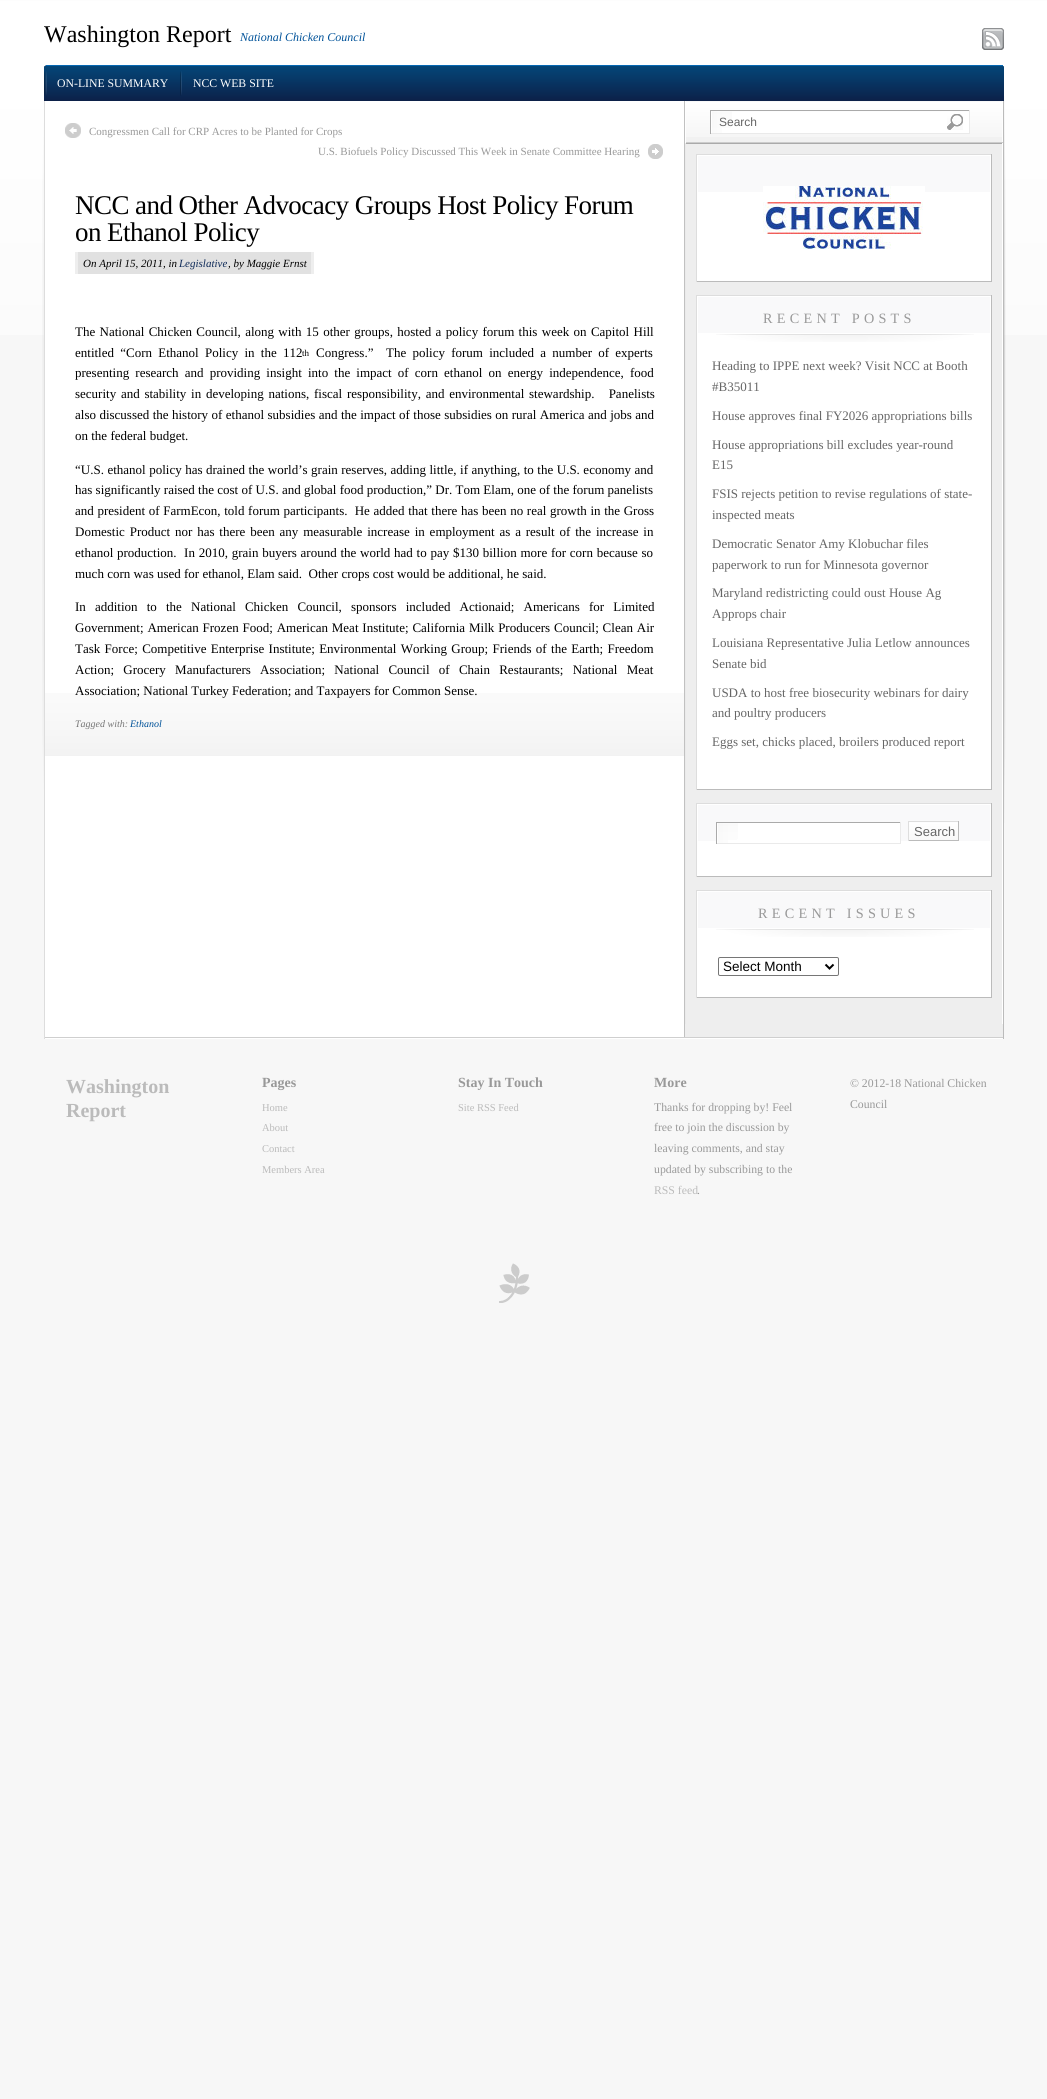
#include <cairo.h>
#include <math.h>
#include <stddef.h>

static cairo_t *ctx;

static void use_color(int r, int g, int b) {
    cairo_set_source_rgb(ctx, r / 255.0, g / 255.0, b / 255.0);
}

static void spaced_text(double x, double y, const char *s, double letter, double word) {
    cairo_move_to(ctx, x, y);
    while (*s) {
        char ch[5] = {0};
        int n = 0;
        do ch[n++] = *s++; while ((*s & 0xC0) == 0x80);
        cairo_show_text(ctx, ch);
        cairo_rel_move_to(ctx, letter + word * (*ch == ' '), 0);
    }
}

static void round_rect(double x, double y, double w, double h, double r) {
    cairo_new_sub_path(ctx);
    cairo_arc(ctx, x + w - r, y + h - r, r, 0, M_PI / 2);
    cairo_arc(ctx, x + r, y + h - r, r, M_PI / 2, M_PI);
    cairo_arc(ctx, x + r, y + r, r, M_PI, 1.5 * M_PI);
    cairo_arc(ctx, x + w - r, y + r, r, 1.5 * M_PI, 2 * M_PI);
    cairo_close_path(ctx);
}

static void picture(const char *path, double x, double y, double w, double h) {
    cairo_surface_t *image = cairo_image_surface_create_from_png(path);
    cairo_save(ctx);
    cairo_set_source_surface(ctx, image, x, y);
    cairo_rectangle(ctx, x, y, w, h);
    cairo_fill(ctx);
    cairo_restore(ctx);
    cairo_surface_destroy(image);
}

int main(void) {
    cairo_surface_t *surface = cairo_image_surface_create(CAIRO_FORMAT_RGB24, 1047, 2099);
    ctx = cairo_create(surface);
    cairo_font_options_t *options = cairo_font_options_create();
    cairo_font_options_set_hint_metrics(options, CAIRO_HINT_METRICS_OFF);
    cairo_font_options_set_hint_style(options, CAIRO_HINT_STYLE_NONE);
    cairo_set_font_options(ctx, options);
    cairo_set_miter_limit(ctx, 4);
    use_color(247, 247, 247);
    cairo_paint(ctx);
    picture("img1.png", 0, 0, 1047, 335);
    cairo_select_font_face(ctx, "Liberation Serif", CAIRO_FONT_SLANT_NORMAL, CAIRO_FONT_WEIGHT_NORMAL);
    cairo_set_font_size(ctx, 24);
    use_color(0, 0, 0);
    cairo_move_to(ctx, 44, 42);
    cairo_show_text(ctx, "Washington Report");
    cairo_select_font_face(ctx, "Liberation Serif", CAIRO_FONT_SLANT_ITALIC, CAIRO_FONT_WEIGHT_NORMAL);
    cairo_set_font_size(ctx, 12);
    use_color(0, 82, 153);
    cairo_move_to(ctx, 240, 41);
    cairo_show_text(ctx, "National Chicken Council");
    picture("img2.png", 982, 28, 22, 22);
    picture("img3.png", 42, 96, 964, 727);
    use_color(7, 42, 90);
    cairo_new_path(ctx);
    cairo_move_to(ctx, 47, 65);
    cairo_line_to(ctx, 1001, 65);
    cairo_curve_to(ctx, 1002.5, 65, 1004, 66.5, 1004, 68);
    cairo_line_to(ctx, 1004, 101);
    cairo_line_to(ctx, 44, 101);
    cairo_line_to(ctx, 44, 68);
    cairo_curve_to(ctx, 44, 66.5, 45.5, 65, 47, 65);
    cairo_close_path(ctx);
    cairo_fill(ctx);
    picture("img4.png", 44, 66, 960, 35);
    use_color(6, 104, 179);
    cairo_rectangle(ctx, 46, 65, 957, 1);
    cairo_fill(ctx);
    picture("img5.png", 44, 71, 3, 25);
    cairo_select_font_face(ctx, "Liberation Serif", CAIRO_FONT_SLANT_NORMAL, CAIRO_FONT_WEIGHT_NORMAL);
    cairo_set_font_size(ctx, 11.75);
    use_color(255, 255, 255);
    cairo_move_to(ctx, 57, 87);
    cairo_show_text(ctx, "ON-LINE SUMMARY");
    picture("img6.png", 180, 71, 2, 25);
    cairo_move_to(ctx, 193, 87);
    cairo_show_text(ctx, "NCC WEB SITE");
    cairo_rectangle(ctx, 45, 101, 639, 936);
    cairo_fill(ctx);
    use_color(187, 187, 187);
    cairo_rectangle(ctx, 1003, 101, 1, 938);
    cairo_fill(ctx);
    use_color(221, 221, 221);
    cairo_rectangle(ctx, 44, 101, 1, 938);
    cairo_fill(ctx);
    picture("img7.png", 65, 123, 16, 15);
    cairo_set_font_size(ctx, 11);
    use_color(153, 153, 153);
    cairo_move_to(ctx, 89, 135);
    cairo_show_text(ctx, "Congressmen Call for CRP Acres to be Planted for Crops");
    picture("img8.png", 648, 144, 15, 15);
    cairo_move_to(ctx, 318, 155);
    cairo_show_text(ctx, "U.S. Biofuels Policy Discussed This Week in Senate Committee Hearing");
    picture("img9.png", 45, 693, 639, 63);
    cairo_set_font_size(ctx, 27);
    use_color(0, 0, 0);
    spaced_text(75, 214, "NCC and Other Advocacy Groups Host Policy Forum", -0.55, 0);
    spaced_text(75, 241, "on Ethanol Policy", -0.55, 0);
    use_color(225, 225, 225);
    cairo_rectangle(ctx, 78, 252, 233, 22);
    cairo_fill(ctx);
    cairo_select_font_face(ctx, "Liberation Serif", CAIRO_FONT_SLANT_ITALIC, CAIRO_FONT_WEIGHT_NORMAL);
    cairo_set_font_size(ctx, 11);
    use_color(0, 0, 0);
    cairo_move_to(ctx, 83, 267);
    cairo_show_text(ctx, "On April 15, 2011, in");
    use_color(238, 238, 238);
    cairo_rectangle(ctx, 75, 252, 3, 22);
    cairo_fill(ctx);
    use_color(15, 43, 89);
    cairo_move_to(ctx, 179, 267);
    cairo_show_text(ctx, "Legislative");
    use_color(0, 0, 0);
    cairo_move_to(ctx, 228, 267);
    cairo_show_text(ctx, ", by Maggie Ernst");
    use_color(238, 238, 238);
    cairo_rectangle(ctx, 311, 252, 3, 22);
    cairo_fill(ctx);
    cairo_select_font_face(ctx, "Liberation Serif", CAIRO_FONT_SLANT_NORMAL, CAIRO_FONT_WEIGHT_NORMAL);
    cairo_set_font_size(ctx, 13);
    use_color(0, 0, 0);
    spaced_text(75, 336, "The National Chicken Council, along with 15 other groups, hosted a policy forum this week on Capitol Hill", 0, 1.1);
    spaced_text(75, 357, "entitled “Corn Ethanol Policy in the 112", 0, 3);
    cairo_set_font_size(ctx, 9);
    cairo_move_to(ctx, 302, 356);
    cairo_show_text(ctx, "th");
    cairo_set_font_size(ctx, 13);
    cairo_move_to(ctx, 316, 357);
    cairo_show_text(ctx, "Congress.”");
    spaced_text(386, 357, "The policy forum included a number of experts", 0, 3);
    spaced_text(75, 377, "presenting research and providing insight into the impact of corn ethanol on energy independence, food", 0, 2.9);
    spaced_text(75, 398, "security and stability in developing nations, fiscal responsibility, and environmental stewardship.   Panelists", 0, 1.5);
    spaced_text(75, 419, "also discussed the history of ethanol subsidies and the impact of those subsidies on rural America and jobs and", 0, 0.2);
    cairo_move_to(ctx, 75, 440);
    cairo_show_text(ctx, "on the federal budget.");
    spaced_text(75, 474, "“U.S. ethanol policy has drained the world’s grain reserves, adding little, if anything, to the U.S. economy and", 0, 0.25);
    cairo_move_to(ctx, 75, 494);
    cairo_show_text(ctx, "has significantly raised the cost of U.S. and global food production,” Dr. Tom Elam, one of the forum panelists");
    spaced_text(75, 515, "and president of FarmEcon, told forum participants.  He added that there has been no real growth in the Gross", 0, 0.4);
    spaced_text(75, 536, "Domestic Product nor has there been any measurable increase in employment as a result of the increase in", 0, 1.6);
    spaced_text(75, 557, "ethanol production.  In 2010, grain buyers around the world had to pay $130 billion more for corn because so", 0, 0.5);
    cairo_move_to(ctx, 75, 578);
    cairo_show_text(ctx, "much corn was used for ethanol, Elam said.  Other crops cost would be additional, he said.");
    spaced_text(75, 611, "In addition to the National Chicken Council, sponsors included Actionaid; Americans for Limited", 0, 5.9);
    spaced_text(75, 632, "Government; American Frozen Food; American Meat Institute; California Milk Producers Council; Clean Air", 0, 0.6);
    spaced_text(75, 653, "Task Force; Competitive Enterprise Institute; Environmental Working Group; Friends of the Earth; Freedom", 0, 1.1);
    spaced_text(75, 674, "Action; Grocery Manufacturers Association; National Council of Chain Restaurants; National Meat", 0, 6);
    cairo_move_to(ctx, 75, 695);
    cairo_show_text(ctx, "Association; National Turkey Federation; and Taxpayers for Common Sense.");
    cairo_select_font_face(ctx, "Liberation Serif", CAIRO_FONT_SLANT_ITALIC, CAIRO_FONT_WEIGHT_NORMAL);
    cairo_set_font_size(ctx, 10);
    use_color(119, 119, 119);
    cairo_move_to(ctx, 75, 727);
    cairo_show_text(ctx, "Tagged with:");
    use_color(0, 82, 153);
    cairo_move_to(ctx, 130, 727);
    cairo_show_text(ctx, "Ethanol");
    use_color(238, 238, 238);
    cairo_rectangle(ctx, 685, 144, 318, 893);
    cairo_fill(ctx);
    use_color(193, 193, 193);
    cairo_rectangle(ctx, 684, 101, 1, 936);
    cairo_fill(ctx);
    use_color(241, 241, 241);
    cairo_rectangle(ctx, 686, 101, 316, 41);
    cairo_fill(ctx);
    picture("img10.png", 686, 101, 316, 36);
    use_color(204, 204, 204);
    cairo_rectangle(ctx, 685, 142, 318, 1);
    cairo_fill(ctx);
    use_color(255, 255, 255);
    cairo_rectangle(ctx, 685, 142, 1, 1);
    cairo_fill(ctx);
    cairo_rectangle(ctx, 711, 112, 258, 21);
    cairo_fill(ctx);
    picture("img11.png", 712, 111, 20, 22);
    use_color(170, 170, 170);
    cairo_rectangle(ctx, 710, 110, 260, 1);
    cairo_fill(ctx);
    use_color(234, 234, 234);
    cairo_rectangle(ctx, 969, 110, 1, 24);
    cairo_fill(ctx);
    cairo_rectangle(ctx, 710, 133, 260, 1);
    cairo_fill(ctx);
    use_color(170, 170, 170);
    cairo_rectangle(ctx, 710, 110, 1, 24);
    cairo_fill(ctx);
    cairo_select_font_face(ctx, "Liberation Sans", CAIRO_FONT_SLANT_NORMAL, CAIRO_FONT_WEIGHT_NORMAL);
    cairo_set_font_size(ctx, 12);
    use_color(102, 102, 102);
    cairo_move_to(ctx, 719, 126);
    cairo_show_text(ctx, "Search");
    picture("img12.png", 947, 114, 16, 16);
    picture("img13.png", 947, 114, 16, 16);
    use_color(170, 170, 170);
    cairo_rectangle(ctx, 685, 143, 318, 1);
    cairo_fill(ctx);
    use_color(255, 255, 255);
    cairo_rectangle(ctx, 1002, 143, 1, 881);
    cairo_fill(ctx);
    use_color(234, 234, 234);
    cairo_rectangle(ctx, 685, 143, 1, 881);
    cairo_fill(ctx);
    use_color(255, 255, 255);
    cairo_rectangle(ctx, 698, 192, 292, 88);
    cairo_fill(ctx);
    use_color(221, 221, 221);
    cairo_rectangle(ctx, 696, 154, 296, 1);
    cairo_fill(ctx);
    use_color(187, 187, 187);
    cairo_rectangle(ctx, 991, 154, 1, 128);
    cairo_fill(ctx);
    cairo_rectangle(ctx, 696, 281, 296, 1);
    cairo_fill(ctx);
    use_color(221, 221, 221);
    cairo_rectangle(ctx, 696, 154, 1, 128);
    cairo_fill(ctx);
    use_color(249, 249, 250);
    cairo_rectangle(ctx, 698, 156, 292, 36);
    cairo_fill(ctx);
    cairo_rectangle(ctx, 697.5, 155.5, 293, 125);
    use_color(255, 255, 255);
    cairo_set_line_width(ctx, 1);
    cairo_stroke(ctx);
    picture("img14.png", 763, 186, 162, 63);
    cairo_rectangle(ctx, 698, 333, 292, 455);
    cairo_fill(ctx);
    use_color(221, 221, 221);
    cairo_rectangle(ctx, 696, 295, 296, 1);
    cairo_fill(ctx);
    use_color(187, 187, 187);
    cairo_rectangle(ctx, 991, 295, 1, 495);
    cairo_fill(ctx);
    cairo_rectangle(ctx, 696, 789, 296, 1);
    cairo_fill(ctx);
    use_color(221, 221, 221);
    cairo_rectangle(ctx, 696, 295, 1, 495);
    cairo_fill(ctx);
    use_color(249, 249, 250);
    cairo_rectangle(ctx, 698, 297, 292, 36);
    cairo_fill(ctx);
    cairo_rectangle(ctx, 697.5, 296.5, 293, 492);
    use_color(255, 255, 255);
    cairo_stroke(ctx);
    picture("img15.png", 716, 334, 258, 8);
    cairo_select_font_face(ctx, "Liberation Serif", CAIRO_FONT_SLANT_NORMAL, CAIRO_FONT_WEIGHT_NORMAL);
    cairo_set_font_size(ctx, 14.25);
    use_color(153, 153, 153);
    spaced_text(763, 323, "RECENT POSTS", 4.25, 0);
    cairo_set_font_size(ctx, 13);
    use_color(102, 102, 102);
    cairo_move_to(ctx, 712, 370);
    cairo_show_text(ctx, "Heading to IPPE next week? Visit NCC at Booth");
    cairo_move_to(ctx, 712, 391);
    cairo_show_text(ctx, "#B35011");
    cairo_move_to(ctx, 712, 420);
    cairo_show_text(ctx, "House approves final FY2026 appropriations bills");
    cairo_move_to(ctx, 712, 449);
    cairo_show_text(ctx, "House appropriations bill excludes year-round");
    cairo_move_to(ctx, 712, 469);
    cairo_show_text(ctx, "E15");
    cairo_move_to(ctx, 712, 498);
    cairo_show_text(ctx, "FSIS rejects petition to revise regulations of state-");
    cairo_move_to(ctx, 712, 519);
    cairo_show_text(ctx, "inspected meats");
    cairo_move_to(ctx, 712, 548);
    cairo_show_text(ctx, "Democratic Senator Amy Klobuchar files");
    cairo_move_to(ctx, 712, 569);
    cairo_show_text(ctx, "paperwork to run for Minnesota governor");
    cairo_move_to(ctx, 712, 597);
    cairo_show_text(ctx, "Maryland redistricting could oust House Ag");
    cairo_move_to(ctx, 712, 618);
    cairo_show_text(ctx, "Approps chair");
    cairo_move_to(ctx, 712, 647);
    cairo_show_text(ctx, "Louisiana Representative Julia Letlow announces");
    cairo_move_to(ctx, 712, 668);
    cairo_show_text(ctx, "Senate bid");
    cairo_move_to(ctx, 712, 697);
    cairo_show_text(ctx, "USDA to host free biosecurity webinars for dairy");
    cairo_move_to(ctx, 712, 717);
    cairo_show_text(ctx, "and poultry producers");
    cairo_move_to(ctx, 712, 746);
    cairo_show_text(ctx, "Eggs set, chicks placed, broilers produced report");
    use_color(255, 255, 255);
    cairo_rectangle(ctx, 698, 841, 292, 34);
    cairo_fill(ctx);
    use_color(221, 221, 221);
    cairo_rectangle(ctx, 696, 803, 296, 1);
    cairo_fill(ctx);
    use_color(187, 187, 187);
    cairo_rectangle(ctx, 991, 803, 1, 74);
    cairo_fill(ctx);
    cairo_rectangle(ctx, 696, 876, 296, 1);
    cairo_fill(ctx);
    use_color(221, 221, 221);
    cairo_rectangle(ctx, 696, 803, 1, 74);
    cairo_fill(ctx);
    use_color(249, 249, 250);
    cairo_rectangle(ctx, 698, 805, 292, 36);
    cairo_fill(ctx);
    cairo_rectangle(ctx, 697.5, 804.5, 293, 71);
    use_color(255, 255, 255);
    cairo_stroke(ctx);
    cairo_rectangle(ctx, 717, 823, 183, 18);
    cairo_fill(ctx);
    picture("img16.png", 718, 823, 20, 20);
    use_color(170, 170, 170);
    cairo_rectangle(ctx, 716, 822, 185, 1);
    cairo_fill(ctx);
    use_color(234, 234, 234);
    cairo_rectangle(ctx, 900, 822, 1, 22);
    cairo_fill(ctx);
    cairo_rectangle(ctx, 716, 843, 185, 1);
    cairo_fill(ctx);
    use_color(170, 170, 170);
    cairo_rectangle(ctx, 716, 822, 1, 22);
    cairo_fill(ctx);
    picture("img17.png", 909, 822, 49, 18);
    use_color(222, 222, 222);
    cairo_rectangle(ctx, 908, 821, 51, 1);
    cairo_fill(ctx);
    use_color(187, 187, 187);
    cairo_rectangle(ctx, 958, 821, 1, 20);
    cairo_fill(ctx);
    cairo_rectangle(ctx, 908, 840, 51, 1);
    cairo_fill(ctx);
    use_color(222, 222, 222);
    cairo_rectangle(ctx, 908, 821, 1, 20);
    cairo_fill(ctx);
    cairo_select_font_face(ctx, "Liberation Sans", CAIRO_FONT_SLANT_NORMAL, CAIRO_FONT_WEIGHT_NORMAL);
    use_color(102, 102, 102);
    cairo_move_to(ctx, 914, 836);
    cairo_show_text(ctx, "Search");
    use_color(255, 255, 255);
    cairo_rectangle(ctx, 698, 928, 292, 68);
    cairo_fill(ctx);
    use_color(221, 221, 221);
    cairo_rectangle(ctx, 696, 890, 296, 1);
    cairo_fill(ctx);
    use_color(187, 187, 187);
    cairo_rectangle(ctx, 991, 890, 1, 108);
    cairo_fill(ctx);
    cairo_rectangle(ctx, 696, 997, 296, 1);
    cairo_fill(ctx);
    use_color(221, 221, 221);
    cairo_rectangle(ctx, 696, 890, 1, 108);
    cairo_fill(ctx);
    use_color(249, 249, 250);
    cairo_rectangle(ctx, 698, 892, 292, 36);
    cairo_fill(ctx);
    cairo_rectangle(ctx, 697.5, 891.5, 293, 105);
    use_color(255, 255, 255);
    cairo_stroke(ctx);
    picture("img15.png", 716, 929, 258, 8);
    cairo_select_font_face(ctx, "Liberation Serif", CAIRO_FONT_SLANT_NORMAL, CAIRO_FONT_WEIGHT_NORMAL);
    cairo_set_font_size(ctx, 14.25);
    use_color(153, 153, 153);
    spaced_text(758, 918, "RECENT ISSUES", 4.25, 0);
    round_rect(718.5, 957.5, 120, 18, 1.5);
    use_color(118, 118, 118);
    cairo_stroke(ctx);
    cairo_new_path(ctx);
    cairo_move_to(ctx, 825.5, 964.5);
    cairo_line_to(ctx, 829.5, 968.5);
    cairo_line_to(ctx, 833.5, 964.5);
    use_color(0, 0, 0);
    cairo_set_line_width(ctx, 2);
    cairo_stroke(ctx);
    cairo_select_font_face(ctx, "Liberation Sans", CAIRO_FONT_SLANT_NORMAL, CAIRO_FONT_WEIGHT_NORMAL);
    cairo_set_font_size(ctx, 13.5);
    cairo_move_to(ctx, 723, 971);
    cairo_show_text(ctx, "Select Month");
    picture("img18.png", 45, 1037, 958, 2);
    cairo_select_font_face(ctx, "Liberation Serif", CAIRO_FONT_SLANT_NORMAL, CAIRO_FONT_WEIGHT_BOLD);
    cairo_set_font_size(ctx, 20);
    use_color(187, 187, 187);
    cairo_move_to(ctx, 66, 1093);
    cairo_show_text(ctx, "Washington");
    cairo_move_to(ctx, 66, 1117);
    cairo_show_text(ctx, "Report");
    cairo_set_font_size(ctx, 14);
    use_color(153, 153, 153);
    cairo_move_to(ctx, 262, 1087);
    cairo_show_text(ctx, "Pages");
    cairo_select_font_face(ctx, "Liberation Serif", CAIRO_FONT_SLANT_NORMAL, CAIRO_FONT_WEIGHT_NORMAL);
    cairo_set_font_size(ctx, 10.5);
    use_color(187, 187, 187);
    cairo_move_to(ctx, 262, 1111);
    cairo_show_text(ctx, "Home");
    cairo_move_to(ctx, 262, 1131);
    cairo_show_text(ctx, "About");
    cairo_move_to(ctx, 262, 1152);
    cairo_show_text(ctx, "Contact");
    cairo_move_to(ctx, 262, 1173);
    cairo_show_text(ctx, "Members Area");
    cairo_select_font_face(ctx, "Liberation Serif", CAIRO_FONT_SLANT_NORMAL, CAIRO_FONT_WEIGHT_BOLD);
    cairo_set_font_size(ctx, 14);
    use_color(153, 153, 153);
    cairo_move_to(ctx, 458, 1087);
    cairo_show_text(ctx, "Stay In Touch");
    cairo_select_font_face(ctx, "Liberation Serif", CAIRO_FONT_SLANT_NORMAL, CAIRO_FONT_WEIGHT_NORMAL);
    cairo_set_font_size(ctx, 10.5);
    use_color(187, 187, 187);
    cairo_move_to(ctx, 458, 1111);
    cairo_show_text(ctx, "Site RSS Feed");
    cairo_select_font_face(ctx, "Liberation Serif", CAIRO_FONT_SLANT_NORMAL, CAIRO_FONT_WEIGHT_BOLD);
    cairo_set_font_size(ctx, 14);
    use_color(153, 153, 153);
    cairo_move_to(ctx, 654, 1087);
    cairo_show_text(ctx, "More");
    cairo_select_font_face(ctx, "Liberation Serif", CAIRO_FONT_SLANT_NORMAL, CAIRO_FONT_WEIGHT_NORMAL);
    cairo_set_font_size(ctx, 11.75);
    cairo_move_to(ctx, 654, 1111);
    cairo_show_text(ctx, "Thanks for dropping by! Feel");
    cairo_move_to(ctx, 654, 1131);
    cairo_show_text(ctx, "free to join the discussion by");
    cairo_move_to(ctx, 654, 1152);
    cairo_show_text(ctx, "leaving comments, and stay");
    cairo_move_to(ctx, 654, 1173);
    cairo_show_text(ctx, "updated by subscribing to the");
    use_color(187, 187, 187);
    cairo_move_to(ctx, 654, 1194);
    cairo_show_text(ctx, "RSS feed");
    use_color(153, 153, 153);
    cairo_move_to(ctx, 697, 1194);
    cairo_show_text(ctx, ".");
    cairo_move_to(ctx, 850, 1087);
    cairo_show_text(ctx, "© 2012-18 National Chicken");
    cairo_move_to(ctx, 850, 1108);
    cairo_show_text(ctx, "Council");
    picture("img19.png", 499, 1263, 31, 40);
    cairo_surface_write_to_png(surface, "result.png");
    cairo_font_options_destroy(options);
    cairo_destroy(ctx);
    cairo_surface_destroy(surface);
    return 0;
}
